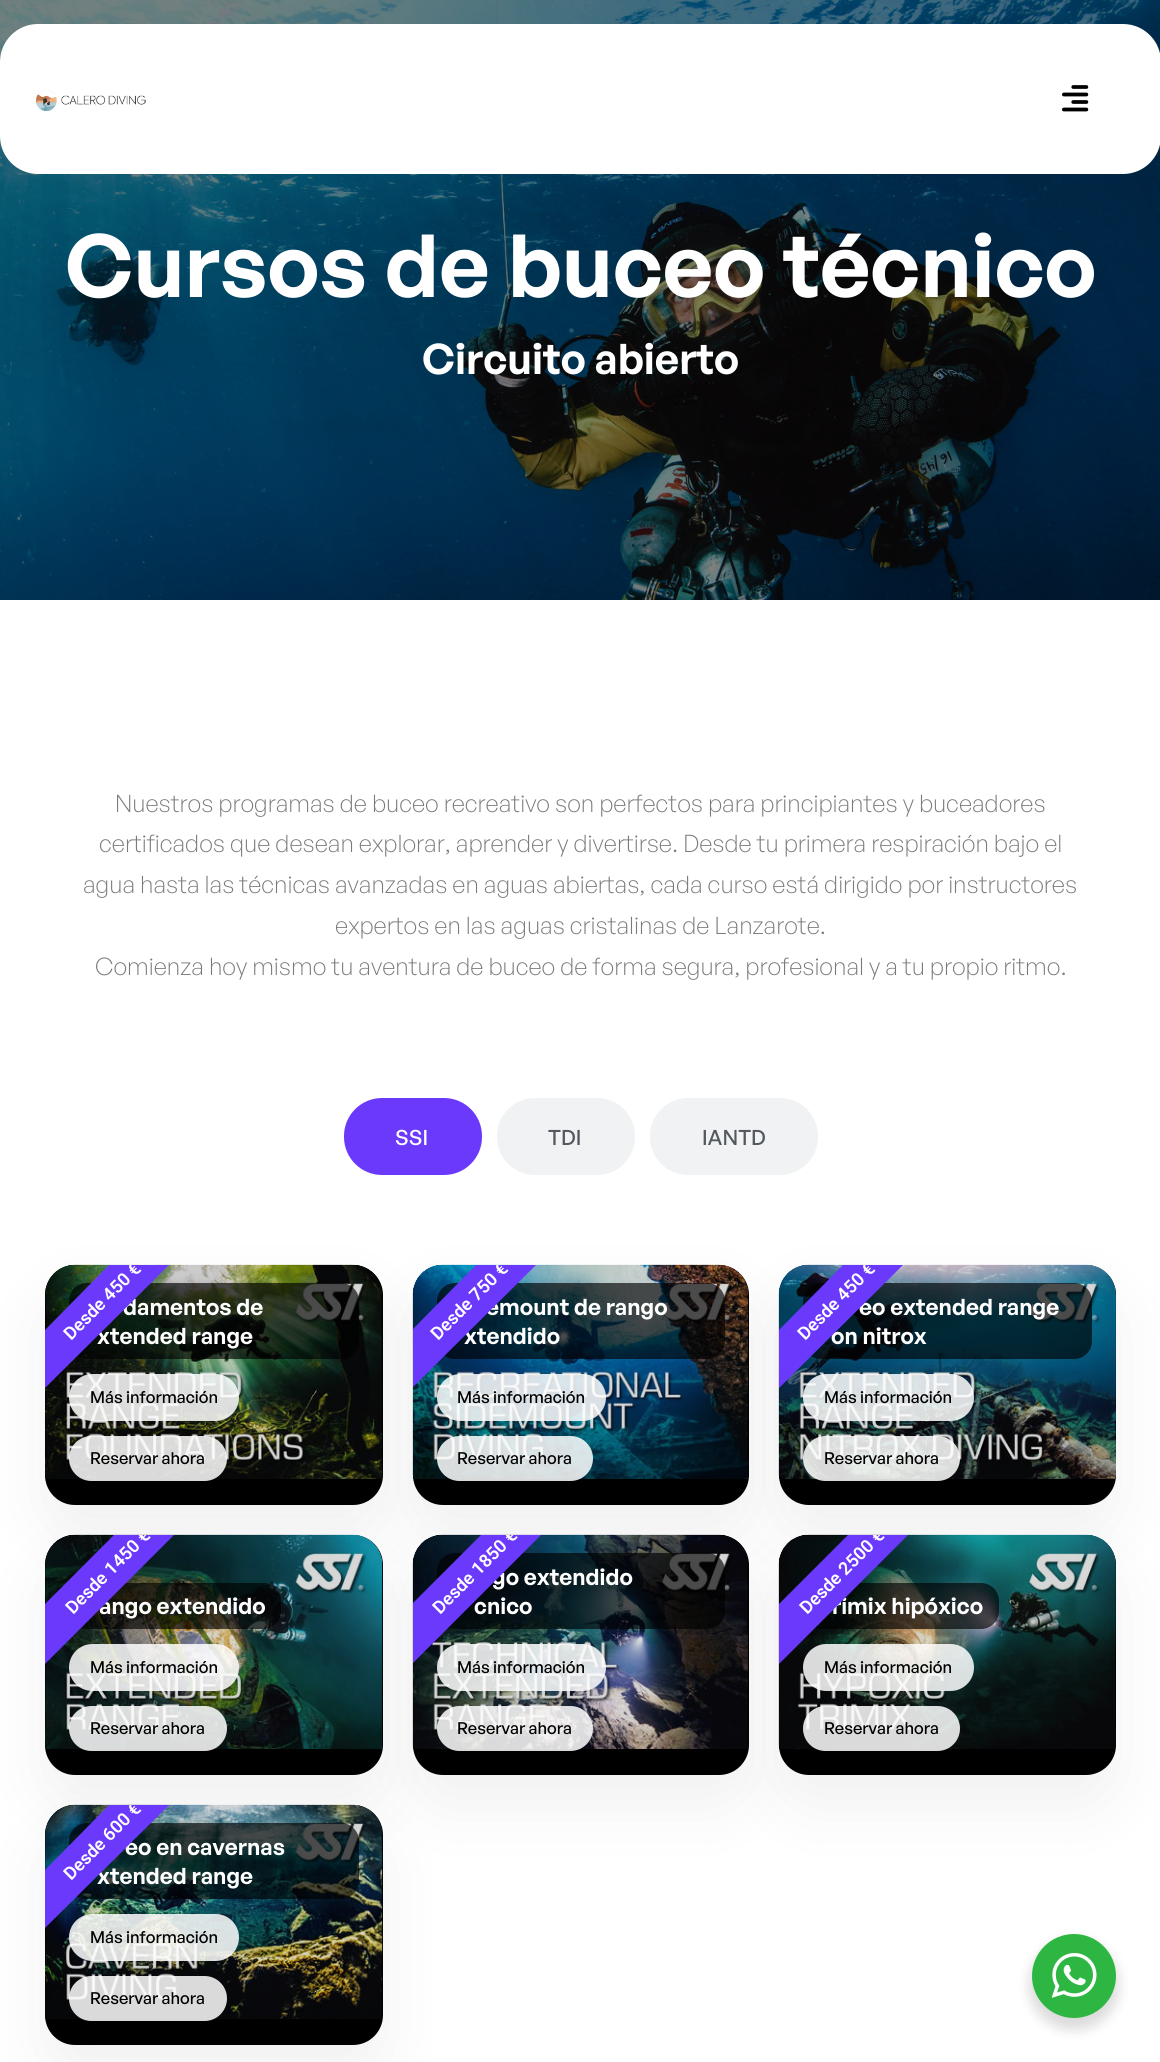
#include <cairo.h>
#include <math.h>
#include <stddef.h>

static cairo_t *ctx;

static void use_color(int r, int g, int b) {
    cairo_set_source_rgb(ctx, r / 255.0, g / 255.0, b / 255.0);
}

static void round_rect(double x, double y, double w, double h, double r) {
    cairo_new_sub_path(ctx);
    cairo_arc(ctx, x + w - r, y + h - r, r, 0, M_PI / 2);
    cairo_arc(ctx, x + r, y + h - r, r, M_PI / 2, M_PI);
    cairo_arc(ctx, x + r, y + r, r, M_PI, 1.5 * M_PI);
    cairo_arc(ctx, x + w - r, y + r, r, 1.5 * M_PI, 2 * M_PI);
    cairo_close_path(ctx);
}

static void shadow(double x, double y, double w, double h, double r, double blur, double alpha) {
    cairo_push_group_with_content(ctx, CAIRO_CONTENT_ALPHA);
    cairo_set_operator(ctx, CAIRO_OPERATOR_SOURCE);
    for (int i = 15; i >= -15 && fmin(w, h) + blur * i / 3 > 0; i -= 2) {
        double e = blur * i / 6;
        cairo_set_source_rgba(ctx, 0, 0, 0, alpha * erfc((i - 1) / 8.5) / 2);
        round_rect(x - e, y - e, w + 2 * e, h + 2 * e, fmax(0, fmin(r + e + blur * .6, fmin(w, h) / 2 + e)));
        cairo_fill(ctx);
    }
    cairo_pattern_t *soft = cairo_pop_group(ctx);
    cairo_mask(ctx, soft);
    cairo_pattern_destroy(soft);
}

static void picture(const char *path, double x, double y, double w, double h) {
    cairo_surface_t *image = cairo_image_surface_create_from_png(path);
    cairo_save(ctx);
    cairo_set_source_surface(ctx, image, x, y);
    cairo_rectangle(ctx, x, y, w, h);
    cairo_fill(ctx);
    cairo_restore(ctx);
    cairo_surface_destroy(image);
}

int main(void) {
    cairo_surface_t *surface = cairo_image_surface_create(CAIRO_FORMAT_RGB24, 1160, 2062);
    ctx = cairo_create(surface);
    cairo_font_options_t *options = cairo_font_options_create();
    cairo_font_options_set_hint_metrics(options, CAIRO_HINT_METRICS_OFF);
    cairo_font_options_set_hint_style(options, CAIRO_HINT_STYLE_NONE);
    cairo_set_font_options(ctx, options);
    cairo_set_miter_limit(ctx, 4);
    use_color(255, 255, 255);
    cairo_paint(ctx);
    picture("img3.png", 0, 0, 1160, 600);
    use_color(255, 255, 255);
    round_rect(0, 24, 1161, 150, 38);
    cairo_fill(ctx);
    picture("img1.png", 36, 90, 110, 21);
    picture("img2.png", 1062, 85, 27, 27);
    cairo_select_font_face(ctx, "General Sans SemiBold", CAIRO_FONT_SLANT_NORMAL, CAIRO_FONT_WEIGHT_NORMAL);
    cairo_set_font_size(ctx, 87);
    cairo_move_to(ctx, 65, 297);
    cairo_show_text(ctx, "Cursos de buceo técnico");
    cairo_set_font_size(ctx, 42);
    cairo_move_to(ctx, 422, 374);
    cairo_show_text(ctx, "Circuito abierto");
    cairo_select_font_face(ctx, "General Sans Light", CAIRO_FONT_SLANT_NORMAL, CAIRO_FONT_WEIGHT_NORMAL);
    cairo_set_font_size(ctx, 24);
    use_color(122, 122, 122);
    cairo_move_to(ctx, 115, 812);
    cairo_show_text(ctx, "Nuestros programas de buceo recreativo son perfectos para principiantes y buceadores");
    cairo_move_to(ctx, 99, 852);
    cairo_show_text(ctx, "certificados que desean explorar, aprender y divertirse. Desde tu primera respiración bajo el");
    cairo_move_to(ctx, 83, 893);
    cairo_show_text(ctx, "agua hasta las técnicas avanzadas en aguas abiertas, cada curso está dirigido por instructores");
    cairo_move_to(ctx, 335, 934);
    cairo_show_text(ctx, "expertos en las aguas cristalinas de Lanzarote.");
    cairo_move_to(ctx, 95, 975);
    cairo_show_text(ctx, "Comienza hoy mismo tu aventura de buceo de forma segura, profesional y a tu propio ritmo.");
    use_color(107, 57, 252);
    round_rect(344, 1098, 138, 77, 38);
    cairo_fill(ctx);
    cairo_select_font_face(ctx, "General Sans Medium", CAIRO_FONT_SLANT_NORMAL, CAIRO_FONT_WEIGHT_NORMAL);
    cairo_set_font_size(ctx, 21);
    use_color(255, 255, 255);
    cairo_move_to(ctx, 395, 1145);
    cairo_show_text(ctx, "SSI");
    use_color(241, 242, 243);
    round_rect(497, 1098, 138, 77, 38);
    cairo_fill(ctx);
    use_color(84, 89, 95);
    cairo_move_to(ctx, 548, 1145);
    cairo_show_text(ctx, "TDI");
    use_color(241, 242, 243);
    round_rect(650, 1098, 168, 77, 38);
    cairo_fill(ctx);
    use_color(84, 89, 95);
    cairo_move_to(ctx, 702, 1145);
    cairo_show_text(ctx, "IANTD");
    use_color(0, 0, 0);
    shadow(45, 1295, 338, 240, 30, 34, 0.06);
    cairo_save(ctx);
    round_rect(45, 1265, 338, 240, 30);
    cairo_clip(ctx);
    shadow(45, 1295, 338, 240, 30, 34, 0.06);
    cairo_restore(ctx);
    use_color(0, 0, 0);
    round_rect(45, 1265, 338, 240, 30);
    cairo_fill(ctx);
    picture("img4.png", 45, 1264, 338, 215);
    use_color(0, 0, 0);
    shadow(413, 1295, 336, 240, 30, 34, 0.06);
    cairo_save(ctx);
    round_rect(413, 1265, 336, 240, 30);
    cairo_clip(ctx);
    shadow(413, 1295, 336, 240, 30, 34, 0.06);
    cairo_restore(ctx);
    cairo_set_source_rgba(ctx, 0, 0, 0, 0.65);
    round_rect(69, 1283, 290, 76, 18);
    cairo_fill(ctx);
    cairo_save(ctx);
    round_rect(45, 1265, 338, 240, 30);
    cairo_clip(ctx);
    use_color(0, 0, 0);
    shadow(-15, 1283, 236, 42, 0, 7.5, 0.15);
    cairo_restore(ctx);
    cairo_select_font_face(ctx, "General Sans SemiBold", CAIRO_FONT_SLANT_NORMAL, CAIRO_FONT_WEIGHT_NORMAL);
    cairo_set_font_size(ctx, 22.5);
    use_color(255, 255, 255);
    cairo_move_to(ctx, 123, 1315);
    cairo_show_text(ctx, "damentos de");
    cairo_move_to(ctx, 97, 1344);
    cairo_show_text(ctx, "xtended range");
    cairo_set_source_rgba(ctx, 1, 1, 1, 0.85);
    round_rect(69, 1374, 170, 47, 23.5);
    cairo_fill(ctx);
    use_color(107, 57, 252);
    cairo_new_path(ctx);
    cairo_move_to(ctx, 169, 1265);
    cairo_line_to(ctx, 109, 1265);
    cairo_line_to(ctx, 45, 1330);
    cairo_line_to(ctx, 45, 1388);
    cairo_close_path(ctx);
    cairo_fill(ctx);
    cairo_save(ctx);
    round_rect(45, 1265, 338, 240, 30);
    cairo_clip(ctx);
    cairo_select_font_face(ctx, "Roboto SemiBold", CAIRO_FONT_SLANT_NORMAL, CAIRO_FONT_WEIGHT_NORMAL);
    cairo_set_font_size(ctx, 18);
    use_color(255, 255, 255);
    cairo_save(ctx);
    cairo_translate(ctx, 71, 1341);
    cairo_rotate(ctx, -45 * M_PI / 180);
    cairo_move_to(ctx, 0, 0);
    cairo_show_text(ctx, "Desde 450 €");
    cairo_restore(ctx);
    cairo_restore(ctx);
    cairo_select_font_face(ctx, "General Sans Medium", CAIRO_FONT_SLANT_NORMAL, CAIRO_FONT_WEIGHT_NORMAL);
    cairo_set_font_size(ctx, 16.5);
    use_color(0, 0, 0);
    cairo_move_to(ctx, 90, 1403);
    cairo_show_text(ctx, "Más información");
    round_rect(413, 1265, 336, 240, 30);
    cairo_fill(ctx);
    picture("img5.png", 412, 1264, 337, 215);
    use_color(0, 0, 0);
    shadow(45, 1565, 338, 240, 30, 34, 0.06);
    cairo_save(ctx);
    round_rect(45, 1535, 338, 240, 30);
    cairo_clip(ctx);
    shadow(45, 1565, 338, 240, 30, 34, 0.06);
    cairo_restore(ctx);
    cairo_set_source_rgba(ctx, 1, 1, 1, 0.85);
    round_rect(69, 1436, 158, 45, 22.5);
    cairo_fill(ctx);
    use_color(0, 0, 0);
    cairo_move_to(ctx, 90, 1464);
    cairo_show_text(ctx, "Reservar ahora");
    use_color(0, 0, 0);
    shadow(779, 1295, 337, 240, 30, 34, 0.06);
    cairo_save(ctx);
    round_rect(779, 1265, 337, 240, 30);
    cairo_clip(ctx);
    shadow(779, 1295, 337, 240, 30, 34, 0.06);
    cairo_restore(ctx);
    cairo_set_source_rgba(ctx, 0, 0, 0, 0.65);
    round_rect(437, 1283, 288, 76, 18);
    cairo_fill(ctx);
    cairo_save(ctx);
    round_rect(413, 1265, 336, 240, 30);
    cairo_clip(ctx);
    use_color(0, 0, 0);
    shadow(353, 1283, 235, 42, 0, 7.5, 0.15);
    cairo_restore(ctx);
    cairo_select_font_face(ctx, "General Sans SemiBold", CAIRO_FONT_SLANT_NORMAL, CAIRO_FONT_WEIGHT_NORMAL);
    cairo_set_font_size(ctx, 22.5);
    use_color(255, 255, 255);
    cairo_move_to(ctx, 486, 1315);
    cairo_show_text(ctx, "emount de rango");
    cairo_move_to(ctx, 464, 1344);
    cairo_show_text(ctx, "xtendido");
    cairo_set_source_rgba(ctx, 1, 1, 1, 0.85);
    round_rect(437, 1374, 169, 47, 23.5);
    cairo_fill(ctx);
    use_color(107, 57, 252);
    cairo_new_path(ctx);
    cairo_move_to(ctx, 536, 1265);
    cairo_line_to(ctx, 476, 1265);
    cairo_line_to(ctx, 413, 1329);
    cairo_line_to(ctx, 413, 1387);
    cairo_close_path(ctx);
    cairo_fill(ctx);
    cairo_save(ctx);
    round_rect(413, 1265, 336, 240, 30);
    cairo_clip(ctx);
    cairo_select_font_face(ctx, "Roboto SemiBold", CAIRO_FONT_SLANT_NORMAL, CAIRO_FONT_WEIGHT_NORMAL);
    cairo_set_font_size(ctx, 18);
    use_color(255, 255, 255);
    cairo_save(ctx);
    cairo_translate(ctx, 438, 1341);
    cairo_rotate(ctx, -45 * M_PI / 180);
    cairo_move_to(ctx, 0, 0);
    cairo_show_text(ctx, "Desde 750 €");
    cairo_restore(ctx);
    cairo_restore(ctx);
    cairo_select_font_face(ctx, "General Sans Medium", CAIRO_FONT_SLANT_NORMAL, CAIRO_FONT_WEIGHT_NORMAL);
    cairo_set_font_size(ctx, 16.5);
    use_color(0, 0, 0);
    cairo_move_to(ctx, 457, 1403);
    cairo_show_text(ctx, "Más información");
    round_rect(779, 1265, 337, 240, 30);
    cairo_fill(ctx);
    picture("img6.png", 778, 1264, 338, 215);
    round_rect(45, 1535, 338, 240, 30);
    cairo_fill(ctx);
    picture("img7.png", 45, 1534, 338, 215);
    use_color(0, 0, 0);
    shadow(413, 1565, 336, 240, 30, 34, 0.06);
    cairo_save(ctx);
    round_rect(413, 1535, 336, 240, 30);
    cairo_clip(ctx);
    shadow(413, 1565, 336, 240, 30, 34, 0.06);
    cairo_restore(ctx);
    cairo_set_source_rgba(ctx, 1, 1, 1, 0.85);
    round_rect(437, 1436, 156, 45, 22.5);
    cairo_fill(ctx);
    use_color(0, 0, 0);
    cairo_move_to(ctx, 457, 1464);
    cairo_show_text(ctx, "Reservar ahora");
    cairo_set_source_rgba(ctx, 0, 0, 0, 0.65);
    round_rect(803, 1283, 289, 76, 18);
    cairo_fill(ctx);
    cairo_save(ctx);
    round_rect(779, 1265, 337, 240, 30);
    cairo_clip(ctx);
    use_color(0, 0, 0);
    shadow(719, 1283, 235, 42, 0, 7.5, 0.15);
    cairo_restore(ctx);
    cairo_select_font_face(ctx, "General Sans SemiBold", CAIRO_FONT_SLANT_NORMAL, CAIRO_FONT_WEIGHT_NORMAL);
    cairo_set_font_size(ctx, 22.5);
    use_color(255, 255, 255);
    cairo_move_to(ctx, 859, 1315);
    cairo_show_text(ctx, "eo extended range");
    cairo_move_to(ctx, 831, 1344);
    cairo_show_text(ctx, "on nitrox");
    cairo_set_source_rgba(ctx, 1, 1, 1, 0.85);
    round_rect(803, 1374, 171, 47, 23.5);
    cairo_fill(ctx);
    use_color(107, 57, 252);
    cairo_new_path(ctx);
    cairo_move_to(ctx, 903, 1265);
    cairo_line_to(ctx, 843, 1265);
    cairo_line_to(ctx, 779, 1330);
    cairo_line_to(ctx, 779, 1388);
    cairo_close_path(ctx);
    cairo_fill(ctx);
    cairo_save(ctx);
    round_rect(779, 1265, 337, 240, 30);
    cairo_clip(ctx);
    cairo_select_font_face(ctx, "Roboto SemiBold", CAIRO_FONT_SLANT_NORMAL, CAIRO_FONT_WEIGHT_NORMAL);
    cairo_set_font_size(ctx, 18);
    use_color(255, 255, 255);
    cairo_save(ctx);
    cairo_translate(ctx, 805, 1341);
    cairo_rotate(ctx, -45 * M_PI / 180);
    cairo_move_to(ctx, 0, 0);
    cairo_show_text(ctx, "Desde 450 €");
    cairo_restore(ctx);
    cairo_restore(ctx);
    cairo_select_font_face(ctx, "General Sans Medium", CAIRO_FONT_SLANT_NORMAL, CAIRO_FONT_WEIGHT_NORMAL);
    cairo_set_font_size(ctx, 16.5);
    use_color(0, 0, 0);
    cairo_move_to(ctx, 824, 1403);
    cairo_show_text(ctx, "Más información");
    round_rect(413, 1535, 336, 240, 30);
    cairo_fill(ctx);
    picture("img8.png", 412, 1534, 337, 215);
    use_color(0, 0, 0);
    shadow(779, 1565, 337, 240, 30, 34, 0.06);
    cairo_save(ctx);
    round_rect(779, 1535, 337, 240, 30);
    cairo_clip(ctx);
    shadow(779, 1565, 337, 240, 30, 34, 0.06);
    cairo_restore(ctx);
    cairo_set_source_rgba(ctx, 1, 1, 1, 0.85);
    round_rect(803, 1436, 157, 45, 22.5);
    cairo_fill(ctx);
    use_color(0, 0, 0);
    cairo_move_to(ctx, 824, 1464);
    cairo_show_text(ctx, "Reservar ahora");
    cairo_set_source_rgba(ctx, 0, 0, 0, 0.65);
    round_rect(69, 1583, 212, 46, 18);
    cairo_fill(ctx);
    cairo_save(ctx);
    round_rect(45, 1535, 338, 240, 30);
    cairo_clip(ctx);
    use_color(0, 0, 0);
    shadow(-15, 1553, 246, 42, 0, 7.5, 0.15);
    cairo_restore(ctx);
    cairo_select_font_face(ctx, "General Sans SemiBold", CAIRO_FONT_SLANT_NORMAL, CAIRO_FONT_WEIGHT_NORMAL);
    cairo_set_font_size(ctx, 22.5);
    use_color(255, 255, 255);
    cairo_move_to(ctx, 99, 1614);
    cairo_show_text(ctx, "ango extendido");
    cairo_set_source_rgba(ctx, 1, 1, 1, 0.85);
    round_rect(69, 1644, 170, 47, 23.5);
    cairo_fill(ctx);
    cairo_select_font_face(ctx, "General Sans Medium", CAIRO_FONT_SLANT_NORMAL, CAIRO_FONT_WEIGHT_NORMAL);
    cairo_set_font_size(ctx, 16.5);
    use_color(0, 0, 0);
    cairo_move_to(ctx, 90, 1673);
    cairo_show_text(ctx, "Más información");
    use_color(107, 57, 252);
    cairo_new_path(ctx);
    cairo_move_to(ctx, 174, 1535);
    cairo_line_to(ctx, 114, 1535);
    cairo_line_to(ctx, 45, 1604);
    cairo_line_to(ctx, 45, 1664);
    cairo_close_path(ctx);
    cairo_fill(ctx);
    cairo_save(ctx);
    round_rect(45, 1535, 338, 240, 30);
    cairo_clip(ctx);
    cairo_select_font_face(ctx, "Roboto SemiBold", CAIRO_FONT_SLANT_NORMAL, CAIRO_FONT_WEIGHT_NORMAL);
    cairo_set_font_size(ctx, 18);
    use_color(255, 255, 255);
    cairo_save(ctx);
    cairo_translate(ctx, 73, 1615);
    cairo_rotate(ctx, -45 * M_PI / 180);
    cairo_move_to(ctx, 0, 0);
    cairo_show_text(ctx, "Desde 1450 €");
    cairo_restore(ctx);
    cairo_restore(ctx);
    use_color(0, 0, 0);
    shadow(45, 1835, 338, 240, 30, 34, 0.06);
    cairo_save(ctx);
    round_rect(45, 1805, 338, 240, 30);
    cairo_clip(ctx);
    shadow(45, 1835, 338, 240, 30, 34, 0.06);
    cairo_restore(ctx);
    cairo_set_source_rgba(ctx, 1, 1, 1, 0.85);
    round_rect(69, 1706, 158, 45, 22.5);
    cairo_fill(ctx);
    use_color(0, 0, 0);
    cairo_move_to(ctx, 90, 1734);
    cairo_show_text(ctx, "Reservar ahora");
    cairo_set_source_rgba(ctx, 0, 0, 0, 0.65);
    round_rect(437, 1553, 288, 76, 18);
    cairo_fill(ctx);
    cairo_save(ctx);
    round_rect(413, 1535, 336, 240, 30);
    cairo_clip(ctx);
    use_color(0, 0, 0);
    shadow(353, 1553, 246, 42, 0, 7.5, 0.15);
    cairo_restore(ctx);
    cairo_select_font_face(ctx, "General Sans SemiBold", CAIRO_FONT_SLANT_NORMAL, CAIRO_FONT_WEIGHT_NORMAL);
    cairo_set_font_size(ctx, 22.5);
    use_color(255, 255, 255);
    cairo_move_to(ctx, 492, 1585);
    cairo_show_text(ctx, "go extendido");
    cairo_move_to(ctx, 474, 1614);
    cairo_show_text(ctx, "cnico");
    cairo_set_source_rgba(ctx, 1, 1, 1, 0.85);
    round_rect(437, 1644, 169, 47, 23.5);
    cairo_fill(ctx);
    cairo_select_font_face(ctx, "General Sans Medium", CAIRO_FONT_SLANT_NORMAL, CAIRO_FONT_WEIGHT_NORMAL);
    cairo_set_font_size(ctx, 16.5);
    use_color(0, 0, 0);
    cairo_move_to(ctx, 457, 1673);
    cairo_show_text(ctx, "Más información");
    use_color(107, 57, 252);
    cairo_new_path(ctx);
    cairo_move_to(ctx, 541, 1535);
    cairo_line_to(ctx, 481, 1535);
    cairo_line_to(ctx, 413, 1603);
    cairo_line_to(ctx, 413, 1663);
    cairo_close_path(ctx);
    cairo_fill(ctx);
    cairo_save(ctx);
    round_rect(413, 1535, 336, 240, 30);
    cairo_clip(ctx);
    cairo_select_font_face(ctx, "Roboto SemiBold", CAIRO_FONT_SLANT_NORMAL, CAIRO_FONT_WEIGHT_NORMAL);
    cairo_set_font_size(ctx, 18);
    use_color(255, 255, 255);
    cairo_save(ctx);
    cairo_translate(ctx, 440, 1615);
    cairo_rotate(ctx, -45 * M_PI / 180);
    cairo_move_to(ctx, 0, 0);
    cairo_show_text(ctx, "Desde 1850 €");
    cairo_restore(ctx);
    cairo_restore(ctx);
    cairo_set_source_rgba(ctx, 1, 1, 1, 0.85);
    round_rect(437, 1706, 156, 45, 22.5);
    cairo_fill(ctx);
    use_color(0, 0, 0);
    cairo_move_to(ctx, 457, 1734);
    cairo_show_text(ctx, "Reservar ahora");
    round_rect(779, 1535, 337, 240, 30);
    cairo_fill(ctx);
    picture("img9.png", 778, 1534, 338, 215);
    cairo_set_source_rgba(ctx, 0, 0, 0, 0.65);
    round_rect(803, 1583, 196, 46, 18);
    cairo_fill(ctx);
    cairo_save(ctx);
    round_rect(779, 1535, 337, 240, 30);
    cairo_clip(ctx);
    use_color(0, 0, 0);
    shadow(719, 1553, 246, 42, 0, 7.5, 0.15);
    cairo_restore(ctx);
    cairo_select_font_face(ctx, "General Sans SemiBold", CAIRO_FONT_SLANT_NORMAL, CAIRO_FONT_WEIGHT_NORMAL);
    cairo_set_font_size(ctx, 22.5);
    use_color(255, 255, 255);
    cairo_move_to(ctx, 832, 1614);
    cairo_show_text(ctx, "rimix hipóxico");
    cairo_set_source_rgba(ctx, 1, 1, 1, 0.85);
    round_rect(803, 1644, 171, 47, 23.5);
    cairo_fill(ctx);
    cairo_select_font_face(ctx, "General Sans Medium", CAIRO_FONT_SLANT_NORMAL, CAIRO_FONT_WEIGHT_NORMAL);
    cairo_set_font_size(ctx, 16.5);
    use_color(0, 0, 0);
    cairo_move_to(ctx, 824, 1673);
    cairo_show_text(ctx, "Más información");
    use_color(107, 57, 252);
    cairo_new_path(ctx);
    cairo_move_to(ctx, 908, 1535);
    cairo_line_to(ctx, 848, 1535);
    cairo_line_to(ctx, 779, 1604);
    cairo_line_to(ctx, 779, 1664);
    cairo_close_path(ctx);
    cairo_fill(ctx);
    cairo_save(ctx);
    round_rect(779, 1535, 337, 240, 30);
    cairo_clip(ctx);
    cairo_select_font_face(ctx, "Roboto SemiBold", CAIRO_FONT_SLANT_NORMAL, CAIRO_FONT_WEIGHT_NORMAL);
    cairo_set_font_size(ctx, 18);
    use_color(255, 255, 255);
    cairo_save(ctx);
    cairo_translate(ctx, 807, 1615);
    cairo_rotate(ctx, -45 * M_PI / 180);
    cairo_move_to(ctx, 0, 0);
    cairo_show_text(ctx, "Desde 2500 €");
    cairo_restore(ctx);
    cairo_restore(ctx);
    cairo_set_source_rgba(ctx, 1, 1, 1, 0.85);
    round_rect(803, 1706, 157, 45, 22.5);
    cairo_fill(ctx);
    use_color(0, 0, 0);
    cairo_move_to(ctx, 824, 1734);
    cairo_show_text(ctx, "Reservar ahora");
    round_rect(45, 1805, 338, 240, 30);
    cairo_fill(ctx);
    picture("img10.png", 45, 1804, 338, 215);
    cairo_set_source_rgba(ctx, 0, 0, 0, 0.65);
    round_rect(69, 1823, 290, 76, 18);
    cairo_fill(ctx);
    cairo_save(ctx);
    round_rect(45, 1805, 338, 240, 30);
    cairo_clip(ctx);
    use_color(0, 0, 0);
    shadow(-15, 1823, 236, 42, 0, 7.5, 0.15);
    cairo_restore(ctx);
    cairo_select_font_face(ctx, "General Sans SemiBold", CAIRO_FONT_SLANT_NORMAL, CAIRO_FONT_WEIGHT_NORMAL);
    cairo_set_font_size(ctx, 22.5);
    use_color(255, 255, 255);
    cairo_move_to(ctx, 125, 1855);
    cairo_show_text(ctx, "eo en cavernas");
    cairo_move_to(ctx, 97, 1884);
    cairo_show_text(ctx, "xtended range");
    cairo_set_source_rgba(ctx, 1, 1, 1, 0.85);
    round_rect(69, 1914, 170, 47, 23.5);
    cairo_fill(ctx);
    use_color(107, 57, 252);
    cairo_new_path(ctx);
    cairo_move_to(ctx, 169, 1805);
    cairo_line_to(ctx, 109, 1805);
    cairo_line_to(ctx, 45, 1870);
    cairo_line_to(ctx, 45, 1928);
    cairo_close_path(ctx);
    cairo_fill(ctx);
    cairo_save(ctx);
    round_rect(45, 1805, 338, 240, 30);
    cairo_clip(ctx);
    cairo_select_font_face(ctx, "Roboto SemiBold", CAIRO_FONT_SLANT_NORMAL, CAIRO_FONT_WEIGHT_NORMAL);
    cairo_set_font_size(ctx, 18);
    use_color(255, 255, 255);
    cairo_save(ctx);
    cairo_translate(ctx, 71, 1881);
    cairo_rotate(ctx, -45 * M_PI / 180);
    cairo_move_to(ctx, 0, 0);
    cairo_show_text(ctx, "Desde 600 €");
    cairo_restore(ctx);
    cairo_restore(ctx);
    cairo_select_font_face(ctx, "General Sans Medium", CAIRO_FONT_SLANT_NORMAL, CAIRO_FONT_WEIGHT_NORMAL);
    cairo_set_font_size(ctx, 16.5);
    use_color(0, 0, 0);
    cairo_move_to(ctx, 90, 1943);
    cairo_show_text(ctx, "Más información");
    cairo_set_source_rgba(ctx, 1, 1, 1, 0.85);
    round_rect(69, 1976, 158, 45, 22.5);
    cairo_fill(ctx);
    use_color(0, 0, 0);
    cairo_move_to(ctx, 90, 2004);
    cairo_show_text(ctx, "Reservar ahora");
    use_color(0, 0, 0);
    shadow(1029, 1940, 90, 90, 45, 6, 0.14);
    use_color(45, 183, 66);
    cairo_arc(ctx, 1074, 1976, 42, 0, 2 * M_PI);
    cairo_fill(ctx);
    picture("img11.png", 1052, 1953, 45, 45);
    cairo_surface_write_to_png(surface, "result.png");
    cairo_font_options_destroy(options);
    cairo_destroy(ctx);
    cairo_surface_destroy(surface);
    return 0;
}
